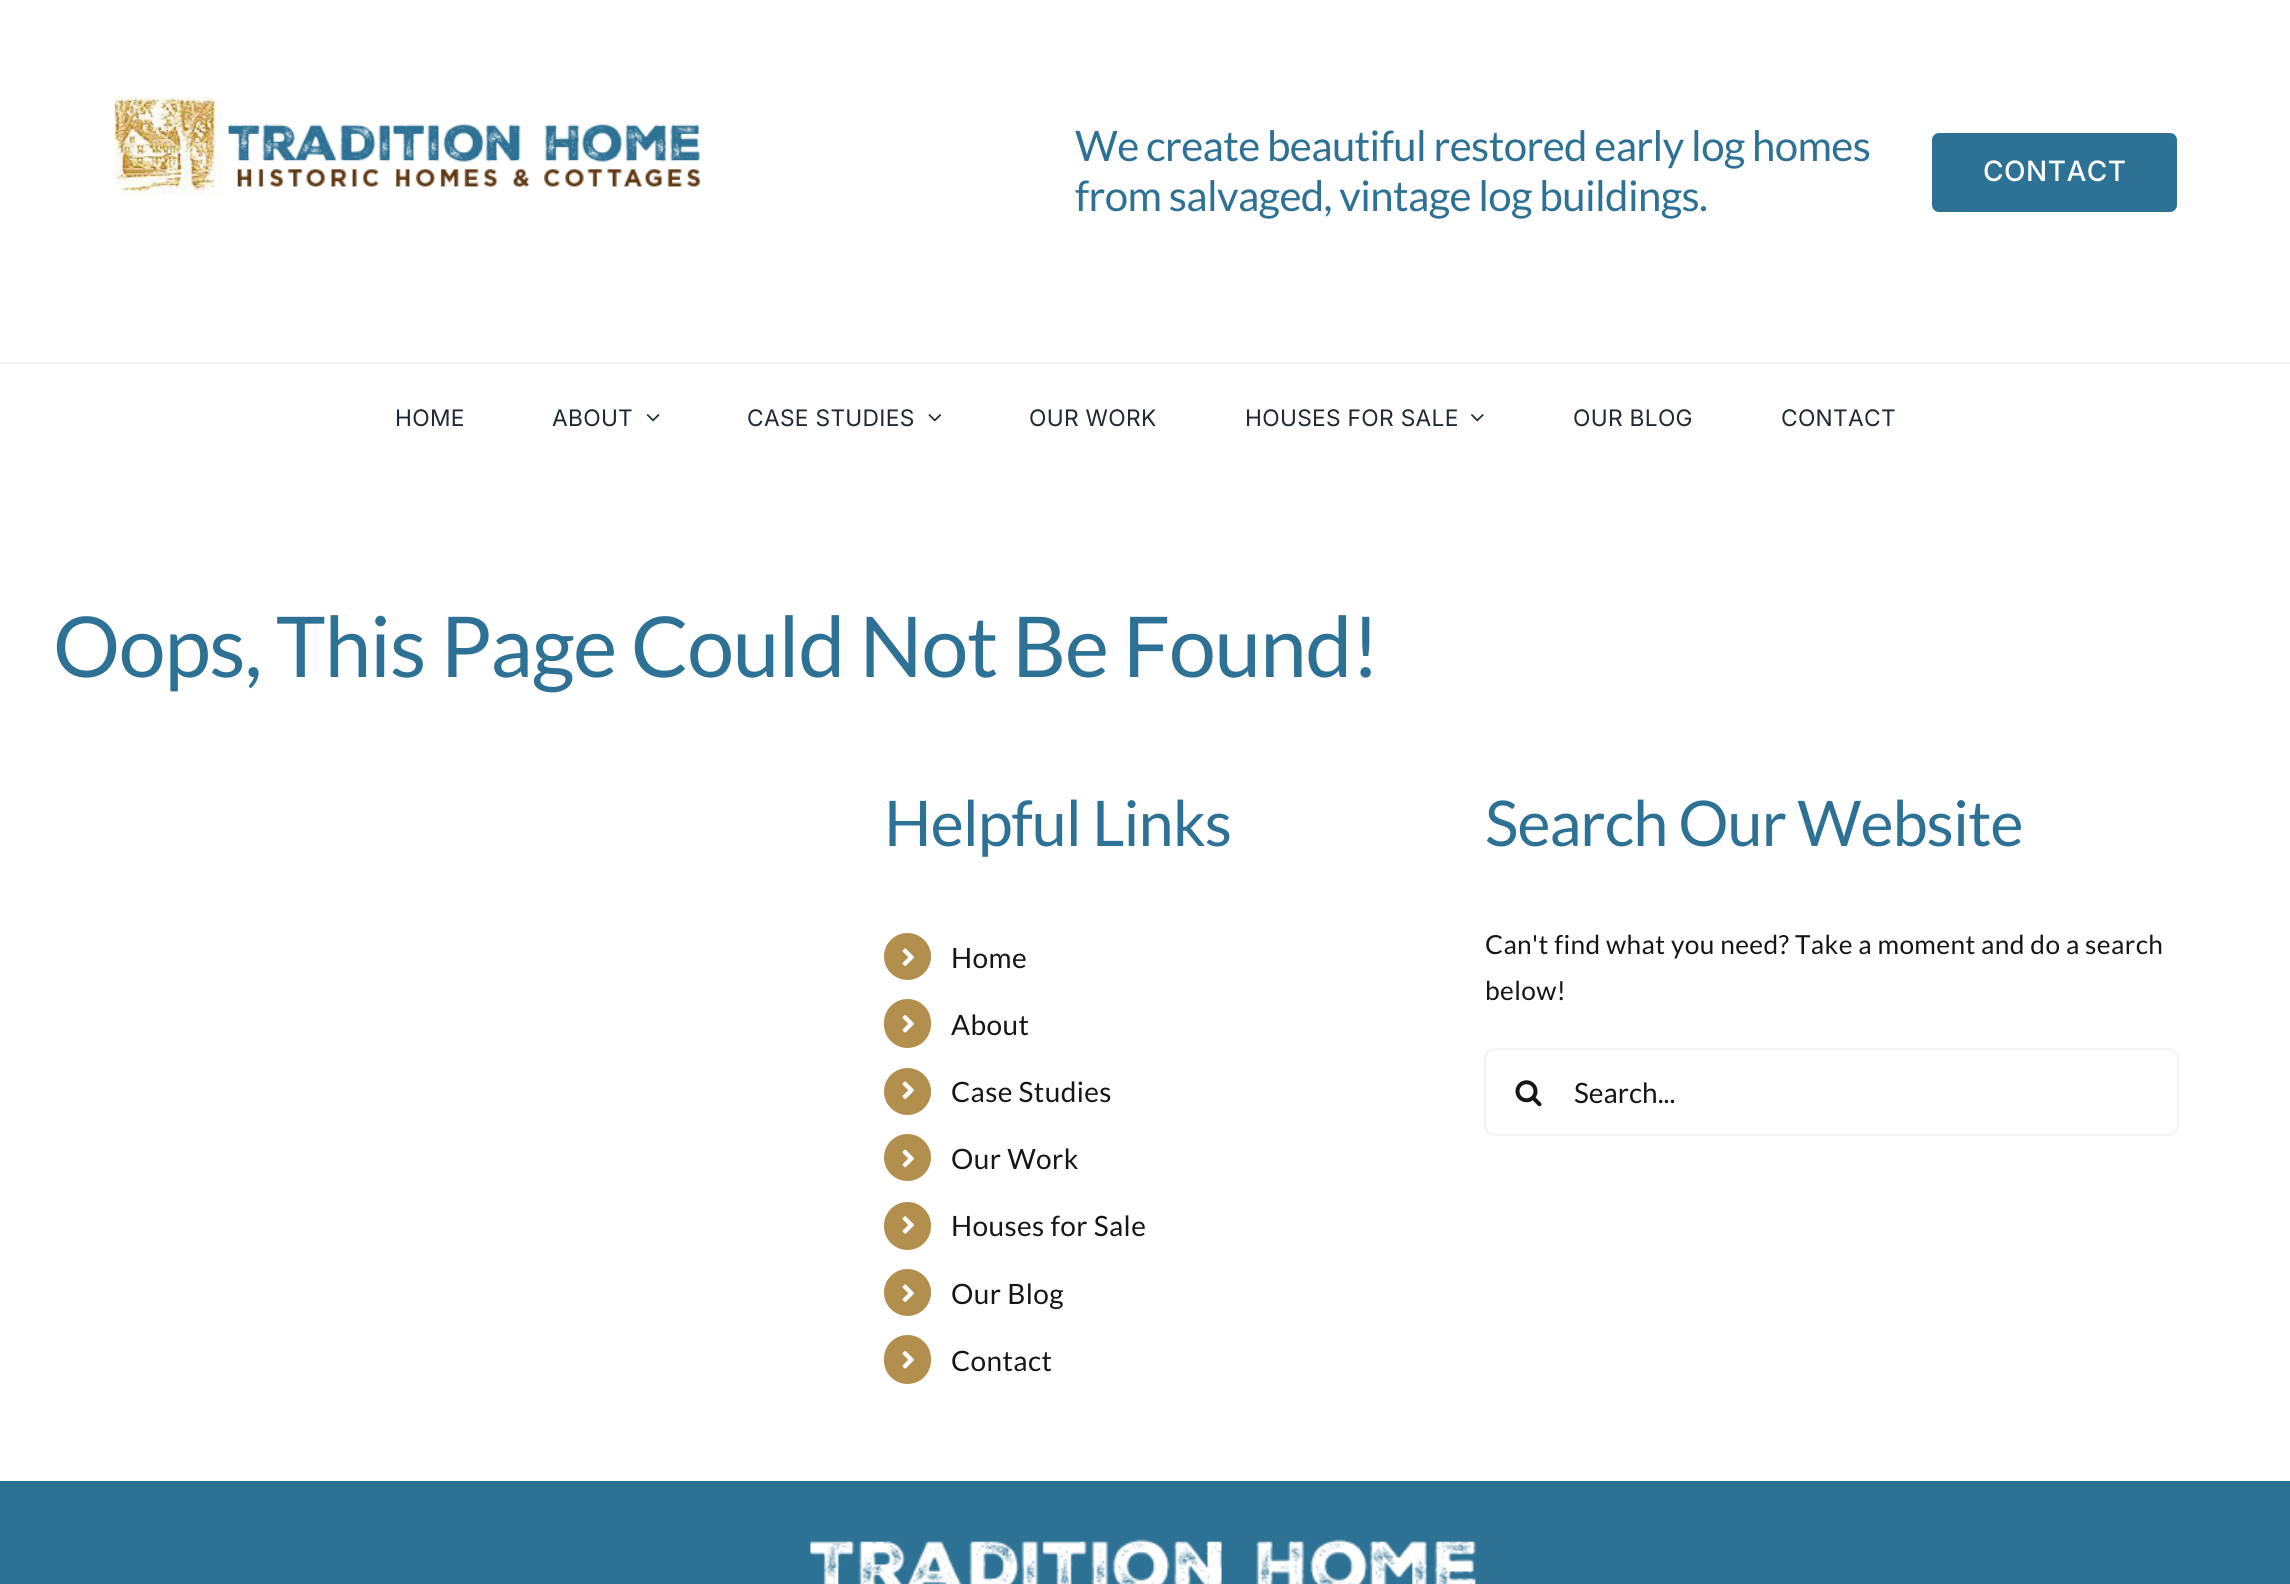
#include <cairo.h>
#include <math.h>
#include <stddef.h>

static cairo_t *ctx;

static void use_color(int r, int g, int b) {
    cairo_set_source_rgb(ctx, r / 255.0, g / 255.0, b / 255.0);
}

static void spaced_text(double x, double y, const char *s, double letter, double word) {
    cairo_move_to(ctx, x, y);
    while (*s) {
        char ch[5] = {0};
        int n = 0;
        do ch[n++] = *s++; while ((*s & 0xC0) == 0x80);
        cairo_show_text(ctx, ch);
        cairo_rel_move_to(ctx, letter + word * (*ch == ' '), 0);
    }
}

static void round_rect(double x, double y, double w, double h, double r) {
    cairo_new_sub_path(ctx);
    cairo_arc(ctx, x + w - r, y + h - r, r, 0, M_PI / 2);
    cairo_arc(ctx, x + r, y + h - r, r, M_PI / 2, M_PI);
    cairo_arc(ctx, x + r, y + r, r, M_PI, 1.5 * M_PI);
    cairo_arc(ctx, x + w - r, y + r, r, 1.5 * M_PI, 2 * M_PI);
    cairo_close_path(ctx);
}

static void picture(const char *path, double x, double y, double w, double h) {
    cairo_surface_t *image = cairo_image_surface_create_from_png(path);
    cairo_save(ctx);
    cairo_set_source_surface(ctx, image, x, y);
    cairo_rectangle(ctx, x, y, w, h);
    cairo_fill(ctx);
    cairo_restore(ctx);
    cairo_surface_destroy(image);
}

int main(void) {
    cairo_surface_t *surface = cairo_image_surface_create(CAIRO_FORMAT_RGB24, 2290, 1584);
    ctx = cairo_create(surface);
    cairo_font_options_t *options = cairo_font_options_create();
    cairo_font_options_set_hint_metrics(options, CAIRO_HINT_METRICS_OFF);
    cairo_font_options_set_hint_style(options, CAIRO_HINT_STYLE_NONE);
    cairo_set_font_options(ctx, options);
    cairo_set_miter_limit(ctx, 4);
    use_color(255, 255, 255);
    cairo_paint(ctx);
    picture("img1.png", 114, 96, 586, 100);
    cairo_select_font_face(ctx, "Lato", CAIRO_FONT_SLANT_NORMAL, CAIRO_FONT_WEIGHT_NORMAL);
    cairo_set_font_size(ctx, 42);
    use_color(45, 113, 148);
    spaced_text(1075, 161, "We create beautiful restored early log homes", -0.65, 0);
    spaced_text(1075, 211, "from salvaged, vintage log buildings.", -0.65, 0);
    round_rect(1932, 133, 245, 79, 7);
    cairo_fill(ctx);
    cairo_select_font_face(ctx, "Inter Medium", CAIRO_FONT_SLANT_NORMAL, CAIRO_FONT_WEIGHT_NORMAL);
    cairo_set_font_size(ctx, 28);
    use_color(255, 255, 255);
    spaced_text(1983, 181, "CONTACT", 0.5, 0);
    use_color(242, 243, 245);
    cairo_rectangle(ctx, 0, 362, 2290, 2);
    cairo_fill(ctx);
    cairo_select_font_face(ctx, "Inter", CAIRO_FONT_SLANT_NORMAL, CAIRO_FONT_WEIGHT_NORMAL);
    cairo_set_font_size(ctx, 22.75);
    use_color(33, 41, 52);
    spaced_text(395, 426, "HOME", 0.3, 0);
    spaced_text(552, 426, "ABOUT", 0.3, 0);
    picture("img2.png", 646, 414, 14, 8);
    spaced_text(747, 426, "CASE STUDIES", 0.3, 0);
    picture("img3.png", 928, 414, 14, 8);
    spaced_text(1029, 426, "OUR WORK", 0.3, 0);
    spaced_text(1245, 426, "HOUSES FOR SALE", 0.3, 0);
    picture("img4.png", 1471, 414, 13, 8);
    spaced_text(1573, 426, "OUR BLOG", 0.3, 0);
    spaced_text(1781, 426, "CONTACT", 0.3, 0);
    cairo_select_font_face(ctx, "Lato", CAIRO_FONT_SLANT_NORMAL, CAIRO_FONT_WEIGHT_NORMAL);
    cairo_set_font_size(ctx, 84);
    use_color(45, 113, 148);
    spaced_text(53, 677, "Oops, This Page Could Not Be Found!", -1.25, 0);
    cairo_set_font_size(ctx, 63);
    spaced_text(884, 846, "Helpful Links", -1, 0);
    use_color(178, 143, 77);
    cairo_new_path(ctx);
    cairo_arc(ctx, 907.5, 956.5, 23.5, 0, 2 * M_PI);
    cairo_fill(ctx);
    picture("img5.png", 902, 948, 12, 18);
    cairo_set_font_size(ctx, 28);
    use_color(20, 22, 23);
    spaced_text(951, 968, "Home", 0.4, 0);
    use_color(178, 143, 77);
    round_rect(884, 999, 47, 49, 23.5);
    cairo_fill(ctx);
    picture("img6.png", 902, 1015, 12, 18);
    use_color(20, 22, 23);
    spaced_text(951, 1035, "About", 0.4, 0);
    use_color(178, 143, 77);
    cairo_new_path(ctx);
    cairo_arc(ctx, 907.5, 1091.5, 23.5, 0, 2 * M_PI);
    cairo_fill(ctx);
    picture("img5.png", 902, 1081, 12, 18);
    use_color(20, 22, 23);
    spaced_text(951, 1102, "Case Studies", 0.4, 0);
    use_color(178, 143, 77);
    cairo_new_path(ctx);
    cairo_arc(ctx, 907.5, 1157.5, 23.5, 0, 2 * M_PI);
    cairo_fill(ctx);
    picture("img7.png", 902, 1149, 12, 19);
    use_color(20, 22, 23);
    spaced_text(951, 1169, "Our Work", 0.4, 0);
    use_color(178, 143, 77);
    round_rect(884, 1202, 47, 48, 23.5);
    cairo_fill(ctx);
    picture("img8.png", 902, 1216, 12, 18);
    use_color(20, 22, 23);
    spaced_text(951, 1236, "Houses for Sale", 0.4, 0);
    use_color(178, 143, 77);
    cairo_new_path(ctx);
    cairo_arc(ctx, 907.5, 1292.5, 23.5, 0, 2 * M_PI);
    cairo_fill(ctx);
    picture("img5.png", 902, 1284, 12, 18);
    use_color(20, 22, 23);
    spaced_text(951, 1304, "Our Blog", 0.4, 0);
    use_color(178, 143, 77);
    round_rect(884, 1335, 47, 49, 23.5);
    cairo_fill(ctx);
    picture("img6.png", 902, 1351, 12, 18);
    use_color(20, 22, 23);
    spaced_text(951, 1371, "Contact", 0.4, 0);
    cairo_set_font_size(ctx, 63);
    use_color(45, 113, 148);
    spaced_text(1485, 846, "Search Our Website", -1, 0);
    cairo_set_font_size(ctx, 26.25);
    use_color(20, 22, 23);
    spaced_text(1485, 954, "Can't find what you need? Take a moment and do a search", 0.4, 0);
    spaced_text(1485, 1000, "below!", 0.4, 0);
    round_rect(1485, 1049, 693, 86, 10);
    use_color(242, 243, 245);
    cairo_stroke(ctx);
    picture("img9.png", 1515, 1080, 27, 27);
    cairo_set_font_size(ctx, 28);
    use_color(20, 22, 23);
    cairo_move_to(ctx, 1574, 1103);
    cairo_show_text(ctx, "Search...");
    use_color(45, 113, 148);
    cairo_rectangle(ctx, 0, 1481, 2290, 103);
    cairo_fill(ctx);
    picture("img10.png", 810, 1539, 666, 45);
    cairo_surface_write_to_png(surface, "result.png");
    cairo_font_options_destroy(options);
    cairo_destroy(ctx);
    cairo_surface_destroy(surface);
    return 0;
}
